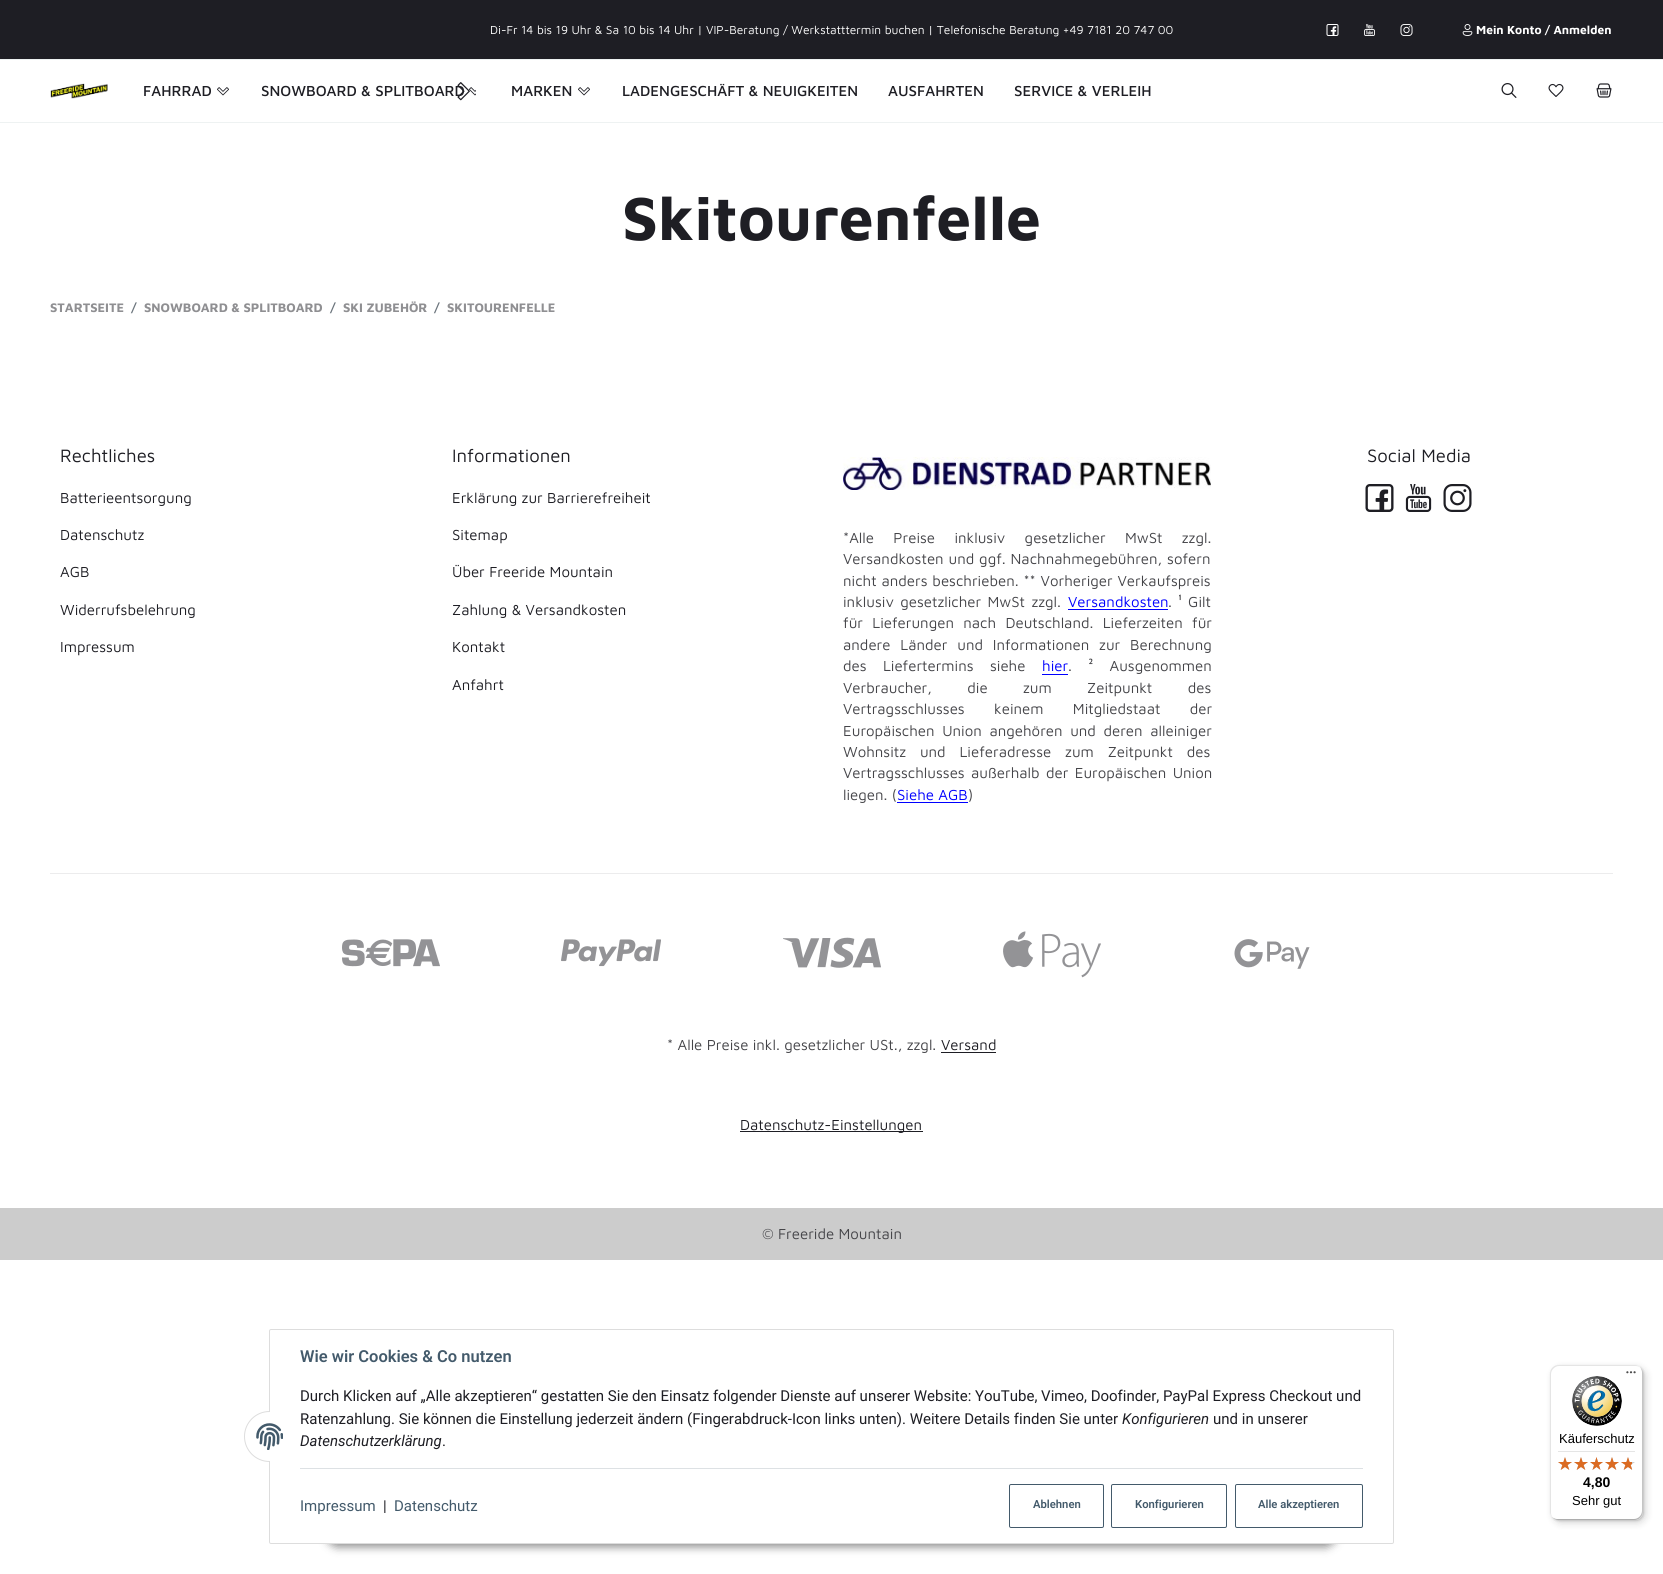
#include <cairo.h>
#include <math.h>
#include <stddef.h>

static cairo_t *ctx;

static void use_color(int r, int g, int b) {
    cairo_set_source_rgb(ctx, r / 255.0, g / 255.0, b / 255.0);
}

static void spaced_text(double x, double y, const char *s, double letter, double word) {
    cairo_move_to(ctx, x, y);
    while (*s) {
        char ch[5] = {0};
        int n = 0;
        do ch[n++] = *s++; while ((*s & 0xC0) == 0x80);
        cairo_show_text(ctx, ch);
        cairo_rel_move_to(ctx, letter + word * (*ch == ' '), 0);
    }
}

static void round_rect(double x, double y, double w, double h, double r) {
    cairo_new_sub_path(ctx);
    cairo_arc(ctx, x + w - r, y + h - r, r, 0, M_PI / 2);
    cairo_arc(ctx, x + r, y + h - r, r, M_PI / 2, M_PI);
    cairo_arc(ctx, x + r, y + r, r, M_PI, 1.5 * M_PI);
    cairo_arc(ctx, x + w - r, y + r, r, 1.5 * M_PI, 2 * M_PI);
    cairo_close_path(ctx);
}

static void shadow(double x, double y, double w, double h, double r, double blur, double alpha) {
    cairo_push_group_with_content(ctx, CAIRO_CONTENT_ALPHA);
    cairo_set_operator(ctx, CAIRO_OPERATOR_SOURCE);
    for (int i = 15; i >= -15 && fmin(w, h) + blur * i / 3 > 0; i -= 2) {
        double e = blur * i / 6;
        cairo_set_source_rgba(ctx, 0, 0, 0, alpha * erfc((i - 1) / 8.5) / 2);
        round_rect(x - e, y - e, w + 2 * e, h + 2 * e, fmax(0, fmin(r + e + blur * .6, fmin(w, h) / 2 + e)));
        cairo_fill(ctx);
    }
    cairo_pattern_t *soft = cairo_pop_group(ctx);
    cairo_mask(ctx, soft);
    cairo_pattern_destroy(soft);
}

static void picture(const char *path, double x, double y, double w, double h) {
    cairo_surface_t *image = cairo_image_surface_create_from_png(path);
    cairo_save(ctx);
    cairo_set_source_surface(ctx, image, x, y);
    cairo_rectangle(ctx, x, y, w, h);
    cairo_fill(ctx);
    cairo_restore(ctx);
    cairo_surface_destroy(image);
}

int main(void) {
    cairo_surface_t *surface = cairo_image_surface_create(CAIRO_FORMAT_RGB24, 1663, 1574);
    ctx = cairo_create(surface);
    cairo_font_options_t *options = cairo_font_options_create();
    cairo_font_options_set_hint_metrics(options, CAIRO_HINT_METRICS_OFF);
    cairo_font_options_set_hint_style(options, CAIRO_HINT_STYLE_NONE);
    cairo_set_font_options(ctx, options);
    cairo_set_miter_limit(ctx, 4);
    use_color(255, 255, 255);
    cairo_paint(ctx);
    use_color(30, 30, 36);
    cairo_rectangle(ctx, 0, 0, 1663, 59);
    cairo_fill(ctx);
    cairo_select_font_face(ctx, "Maven Pro", CAIRO_FONT_SLANT_NORMAL, CAIRO_FONT_WEIGHT_NORMAL);
    cairo_set_font_size(ctx, 12);
    use_color(255, 255, 255);
    cairo_move_to(ctx, 490, 34);
    cairo_show_text(ctx, "Di-Fr 14 bis 19 Uhr & Sa 10 bis 14 Uhr | VIP-Beratung / Werkstatttermin buchen | Telefonische Beratung +49 7181 20 747 00");
    picture("img1.png", 1326, 24, 13, 12);
    picture("img2.png", 1364, 24, 11, 12);
    picture("img3.png", 1400, 24, 13, 12);
    picture("img4.png", 1462, 24, 11, 12);
    cairo_select_font_face(ctx, "Maven Pro", CAIRO_FONT_SLANT_NORMAL, CAIRO_FONT_WEIGHT_BOLD);
    cairo_move_to(ctx, 1476, 34);
    cairo_show_text(ctx, "Mein Konto / Anmelden");
    use_color(238, 242, 242);
    cairo_rectangle(ctx, 0, 59, 1663, 1);
    cairo_fill(ctx);
    cairo_rectangle(ctx, 0, 122, 1663, 1);
    cairo_fill(ctx);
    picture("img5.png", 50, 83, 58, 16);
    cairo_select_font_face(ctx, "Maven Pro Medium", CAIRO_FONT_SLANT_NORMAL, CAIRO_FONT_WEIGHT_NORMAL);
    cairo_set_font_size(ctx, 15);
    use_color(30, 30, 36);
    cairo_move_to(ctx, 261, 96);
    cairo_show_text(ctx, "SNOWBOARD & SPLITBOARD");
    picture("img8.png", 469, 87, 7, 9);
    picture("img6.png", 457, 82, 13, 19);
    cairo_move_to(ctx, 143, 96);
    cairo_show_text(ctx, "FAHRRAD");
    picture("img7.png", 217, 87, 12, 9);
    cairo_move_to(ctx, 511, 96);
    cairo_show_text(ctx, "MARKEN");
    picture("img7.png", 578, 87, 12, 9);
    cairo_move_to(ctx, 622, 96);
    cairo_show_text(ctx, "LADENGESCHÄFT & NEUIGKEITEN");
    cairo_move_to(ctx, 888, 96);
    cairo_show_text(ctx, "AUSFAHRTEN");
    cairo_move_to(ctx, 1014, 96);
    cairo_show_text(ctx, "SERVICE & VERLEIH");
    picture("img9.png", 1501, 83, 16, 15);
    picture("img10.png", 1548, 83, 16, 14);
    picture("img11.png", 1596, 83, 16, 15);
    cairo_select_font_face(ctx, "Maven Pro", CAIRO_FONT_SLANT_NORMAL, CAIRO_FONT_WEIGHT_BOLD);
    cairo_set_font_size(ctx, 62.25);
    cairo_move_to(ctx, 622, 240);
    cairo_show_text(ctx, "Skitourenfelle");
    cairo_set_font_size(ctx, 12.75);
    use_color(143, 143, 146);
    cairo_move_to(ctx, 50, 312);
    cairo_show_text(ctx, "STARTSEITE");
    use_color(108, 117, 125);
    cairo_move_to(ctx, 131, 312);
    cairo_show_text(ctx, "/");
    use_color(143, 143, 146);
    cairo_move_to(ctx, 144, 312);
    cairo_show_text(ctx, "SNOWBOARD & SPLITBOARD");
    use_color(108, 117, 125);
    cairo_move_to(ctx, 330, 312);
    cairo_show_text(ctx, "/");
    use_color(143, 143, 146);
    cairo_move_to(ctx, 343, 312);
    cairo_show_text(ctx, "SKI ZUBEHÖR");
    use_color(108, 117, 125);
    cairo_move_to(ctx, 434, 312);
    cairo_show_text(ctx, "/");
    use_color(143, 143, 146);
    cairo_move_to(ctx, 447, 312);
    cairo_show_text(ctx, "SKITOURENFELLE");
    cairo_select_font_face(ctx, "Maven Pro", CAIRO_FONT_SLANT_NORMAL, CAIRO_FONT_WEIGHT_NORMAL);
    cairo_set_font_size(ctx, 18.5);
    use_color(30, 30, 36);
    cairo_move_to(ctx, 60, 462);
    cairo_show_text(ctx, "Rechtliches");
    cairo_set_font_size(ctx, 15);
    cairo_move_to(ctx, 60, 503);
    cairo_show_text(ctx, "Batterieentsorgung");
    cairo_move_to(ctx, 60, 540);
    cairo_show_text(ctx, "Datenschutz");
    cairo_move_to(ctx, 60, 577);
    cairo_show_text(ctx, "AGB");
    cairo_move_to(ctx, 60, 615);
    cairo_show_text(ctx, "Widerrufsbelehrung");
    cairo_move_to(ctx, 60, 652);
    cairo_show_text(ctx, "Impressum");
    cairo_set_font_size(ctx, 18.5);
    cairo_move_to(ctx, 452, 462);
    cairo_show_text(ctx, "Informationen");
    cairo_set_font_size(ctx, 15);
    cairo_move_to(ctx, 452, 503);
    cairo_show_text(ctx, "Erklärung zur Barrierefreiheit");
    cairo_move_to(ctx, 452, 540);
    cairo_show_text(ctx, "Sitemap");
    cairo_move_to(ctx, 452, 577);
    cairo_show_text(ctx, "Über Freeride Mountain");
    cairo_move_to(ctx, 452, 615);
    cairo_show_text(ctx, "Zahlung & Versandkosten");
    cairo_move_to(ctx, 452, 652);
    cairo_show_text(ctx, "Kontakt");
    cairo_move_to(ctx, 452, 690);
    cairo_show_text(ctx, "Anfahrt");
    cairo_set_font_size(ctx, 18.5);
    cairo_move_to(ctx, 1367, 462);
    cairo_show_text(ctx, "Social Media");
    picture("img12.png", 1365, 484, 29, 28);
    picture("img13.png", 1405, 484, 27, 28);
    picture("img14.png", 1443, 484, 29, 28);
    picture("img15.png", 843, 457, 368, 33);
    cairo_set_font_size(ctx, 15);
    use_color(69, 69, 73);
    spaced_text(843, 543, "*Alle Preise inklusiv gesetzlicher MwSt zzgl.", 0, 15);
    spaced_text(843, 564, "Versandkosten und ggf. Nachnahmegebühren, sofern", 0, 0.5);
    spaced_text(843, 586, "nicht anders beschrieben. ** Vorheriger Verkaufspreis", 0, 0.5);
    spaced_text(843, 607, "inklusiv gesetzlicher MwSt zzgl.", 0, 2);
    use_color(0, 0, 255);
    cairo_move_to(ctx, 1068, 607);
    cairo_show_text(ctx, "Versandkosten");
    cairo_rectangle(ctx, 1068, 609, 100, 1);
    cairo_fill(ctx);
    use_color(69, 69, 73);
    spaced_text(1168, 607, ". ¹ Gilt", 0, 2);
    spaced_text(843, 628, "für Lieferungen nach Deutschland. Lieferzeiten für", 0, 5);
    spaced_text(843, 650, "andere Länder und Informationen zur Berechnung", 0, 5.5);
    spaced_text(843, 671, "des Liefertermins siehe", 0, 12);
    use_color(0, 0, 255);
    cairo_move_to(ctx, 1042, 671);
    cairo_show_text(ctx, "hier");
    cairo_rectangle(ctx, 1042, 674, 26, 1);
    cairo_fill(ctx);
    use_color(69, 69, 73);
    spaced_text(1068, 671, ". ² Ausgenommen", 0, 12);
    spaced_text(843, 693, "Verbraucher, die zum Zeitpunkt des", 0, 31);
    spaced_text(843, 714, "Vertragsschlusses keinem Mitgliedstaat der", 0, 25);
    spaced_text(843, 736, "Europäischen Union angehören und deren alleiniger", 0, 3.25);
    spaced_text(843, 757, "Wohnsitz und Lieferadresse zum Zeitpunkt des", 0, 9.5);
    spaced_text(843, 778, "Vertragsschlusses außerhalb der Europäischen Union", 0, 2);
    cairo_move_to(ctx, 843, 800);
    cairo_show_text(ctx, "liegen. (");
    use_color(0, 0, 255);
    cairo_move_to(ctx, 897, 800);
    cairo_show_text(ctx, "Siehe AGB");
    cairo_rectangle(ctx, 897, 802, 71, 1);
    cairo_fill(ctx);
    use_color(69, 69, 73);
    cairo_move_to(ctx, 968, 800);
    cairo_show_text(ctx, ")");
    use_color(236, 236, 237);
    cairo_rectangle(ctx, 50, 873, 1563, 1);
    cairo_fill(ctx);
    picture("img16.png", 342, 939, 98, 28);
    picture("img17.png", 561, 939, 100, 28);
    picture("img18.png", 783, 937, 98, 31);
    picture("img19.png", 1003, 931, 98, 47);
    picture("img20.png", 1234, 939, 76, 30);
    use_color(69, 69, 73);
    cairo_move_to(ctx, 667, 1050);
    cairo_show_text(ctx, "* Alle Preise inkl. gesetzlicher USt., zzgl.");
    use_color(30, 30, 36);
    cairo_move_to(ctx, 941, 1050);
    cairo_show_text(ctx, "Versand");
    cairo_rectangle(ctx, 941, 1052, 55, 1);
    cairo_fill(ctx);
    cairo_rectangle(ctx, 740, 1131, 183, 1);
    cairo_fill(ctx);
    cairo_move_to(ctx, 740, 1130);
    cairo_show_text(ctx, "Datenschutz-Einstellungen");
    use_color(204, 204, 204);
    cairo_rectangle(ctx, 0, 1208, 1663, 52);
    cairo_fill(ctx);
    use_color(69, 69, 73);
    cairo_move_to(ctx, 762, 1239);
    cairo_show_text(ctx, "© Freeride Mountain");
    use_color(0, 0, 0);
    shadow(326, 1517, 1011, 30, 15, 4.5, 0.45);
    use_color(255, 255, 255);
    round_rect(269.5, 1329.5, 1124, 214, 1.5);
    cairo_fill_preserve(ctx);
    use_color(221, 221, 221);
    cairo_set_line_width(ctx, 1);
    cairo_stroke(ctx);
    use_color(255, 255, 255);
    round_rect(244.5, 1411.5, 51, 50, 25);
    cairo_fill_preserve(ctx);
    use_color(221, 221, 221);
    cairo_stroke(ctx);
    use_color(255, 255, 255);
    cairo_rectangle(ctx, 270, 1411, 26, 51);
    cairo_fill(ctx);
    picture("img21.png", 256, 1423, 27, 27);
    cairo_select_font_face(ctx, "Roboto SemiBold", CAIRO_FONT_SLANT_NORMAL, CAIRO_FONT_WEIGHT_NORMAL);
    cairo_set_font_size(ctx, 16.5);
    use_color(67, 90, 107);
    cairo_move_to(ctx, 300, 1362);
    cairo_show_text(ctx, "Wie wir Cookies & Co nutzen");
    cairo_select_font_face(ctx, "Roboto", CAIRO_FONT_SLANT_NORMAL, CAIRO_FONT_WEIGHT_NORMAL);
    cairo_set_font_size(ctx, 15);
    use_color(30, 30, 36);
    cairo_move_to(ctx, 300, 1401);
    cairo_show_text(ctx, "Durch Klicken auf „Alle akzeptieren“ gestatten Sie den Einsatz folgender Dienste auf unserer Website: YouTube, Vimeo, Doofinder, PayPal Express Checkout und");
    cairo_move_to(ctx, 300, 1424);
    cairo_show_text(ctx, "Ratenzahlung. Sie können die Einstellung jederzeit ändern (Fingerabdruck-Icon links unten). Weitere Details finden Sie unter");
    cairo_select_font_face(ctx, "Roboto", CAIRO_FONT_SLANT_ITALIC, CAIRO_FONT_WEIGHT_NORMAL);
    cairo_move_to(ctx, 1122, 1424);
    cairo_show_text(ctx, "Konfigurieren");
    cairo_select_font_face(ctx, "Roboto", CAIRO_FONT_SLANT_NORMAL, CAIRO_FONT_WEIGHT_NORMAL);
    cairo_move_to(ctx, 1213, 1424);
    cairo_show_text(ctx, "und in unserer");
    cairo_select_font_face(ctx, "Roboto", CAIRO_FONT_SLANT_ITALIC, CAIRO_FONT_WEIGHT_NORMAL);
    cairo_move_to(ctx, 300, 1446);
    cairo_show_text(ctx, "Datenschutzerklärung");
    cairo_select_font_face(ctx, "Roboto", CAIRO_FONT_SLANT_NORMAL, CAIRO_FONT_WEIGHT_NORMAL);
    cairo_move_to(ctx, 442, 1446);
    cairo_show_text(ctx, ".");
    use_color(221, 225, 228);
    cairo_rectangle(ctx, 300, 1468, 1063, 1);
    cairo_fill(ctx);
    use_color(67, 90, 107);
    cairo_move_to(ctx, 300, 1511);
    cairo_show_text(ctx, "Impressum");
    use_color(30, 30, 36);
    cairo_move_to(ctx, 383, 1511);
    cairo_show_text(ctx, "|");
    use_color(67, 90, 107);
    cairo_move_to(ctx, 394, 1511);
    cairo_show_text(ctx, "Datenschutz");
    round_rect(1009.5, 1484.5, 94, 43, 1.5);
    cairo_stroke(ctx);
    cairo_select_font_face(ctx, "Roboto SemiBold", CAIRO_FONT_SLANT_NORMAL, CAIRO_FONT_WEIGHT_NORMAL);
    cairo_set_font_size(ctx, 11.25);
    cairo_move_to(ctx, 1033, 1508);
    cairo_show_text(ctx, "Ablehnen");
    round_rect(1111.5, 1484.5, 115, 43, 1.5);
    cairo_stroke(ctx);
    cairo_move_to(ctx, 1135, 1508);
    cairo_show_text(ctx, "Konfigurieren");
    round_rect(1235.5, 1484.5, 127, 43, 1.5);
    cairo_stroke(ctx);
    cairo_move_to(ctx, 1258, 1508);
    cairo_show_text(ctx, "Alle akzeptieren");
    use_color(0, 0, 0);
    shadow(1553, 1368, 93, 155, 8, 4, 0.15);
    shadow(1551, 1366, 93, 155, 8, 1, 0.15);
    use_color(255, 255, 255);
    round_rect(1550, 1365, 93, 155, 8);
    cairo_fill(ctx);
    use_color(229, 229, 229);
    cairo_new_path(ctx);
    cairo_move_to(ctx, 1559, 1366);
    cairo_line_to(ctx, 1636, 1366);
    cairo_curve_to(ctx, 1638, 1366, 1640, 1367, 1642, 1369);
    cairo_curve_to(ctx, 1640, 1367, 1638, 1365, 1635, 1365);
    cairo_line_to(ctx, 1558, 1365);
    cairo_curve_to(ctx, 1554, 1365, 1550, 1369, 1550, 1373);
    cairo_line_to(ctx, 1550, 1512);
    cairo_curve_to(ctx, 1550, 1515, 1552, 1517, 1554, 1519);
    cairo_curve_to(ctx, 1552, 1517, 1551, 1515, 1551, 1513);
    cairo_line_to(ctx, 1551, 1374);
    cairo_curve_to(ctx, 1551, 1370, 1555, 1366, 1559, 1366);
    cairo_close_path(ctx);
    cairo_fill(ctx);
    use_color(204, 204, 204);
    cairo_new_path(ctx);
    cairo_move_to(ctx, 1551, 1516);
    cairo_curve_to(ctx, 1553, 1518, 1555, 1520, 1558, 1520);
    cairo_line_to(ctx, 1635, 1520);
    cairo_curve_to(ctx, 1639, 1520, 1643, 1516, 1643, 1512);
    cairo_line_to(ctx, 1643, 1373);
    cairo_curve_to(ctx, 1643, 1370, 1641, 1368, 1639, 1366);
    cairo_curve_to(ctx, 1641, 1368, 1642, 1370, 1642, 1372);
    cairo_line_to(ctx, 1642, 1511);
    cairo_curve_to(ctx, 1642, 1515, 1638, 1519, 1634, 1519);
    cairo_line_to(ctx, 1557, 1519);
    cairo_curve_to(ctx, 1555, 1519, 1553, 1518, 1551, 1516);
    cairo_close_path(ctx);
    cairo_fill(ctx);
    cairo_set_source_rgba(ctx, 0.196, 0.196, 0.196, 0.2);
    cairo_new_path(ctx);
    cairo_move_to(ctx, 1552, 1517);
    cairo_curve_to(ctx, 1553, 1519, 1556, 1520, 1558, 1520);
    cairo_line_to(ctx, 1635, 1520);
    cairo_curve_to(ctx, 1639, 1520, 1643, 1516, 1643, 1512);
    cairo_line_to(ctx, 1643, 1373);
    cairo_curve_to(ctx, 1643, 1371, 1642, 1368, 1640, 1367);
    cairo_curve_to(ctx, 1641, 1368, 1642, 1370, 1642, 1372);
    cairo_line_to(ctx, 1642, 1511);
    cairo_curve_to(ctx, 1642, 1516, 1639, 1519, 1634, 1519);
    cairo_line_to(ctx, 1557, 1519);
    cairo_curve_to(ctx, 1555, 1519, 1553, 1518, 1552, 1517);
    cairo_close_path(ctx);
    cairo_fill(ctx);
    cairo_set_source_rgba(ctx, 1, 1, 1, 0.3);
    cairo_new_path(ctx);
    cairo_move_to(ctx, 1634, 1520);
    cairo_line_to(ctx, 1635, 1520);
    cairo_curve_to(ctx, 1639, 1520, 1643, 1516, 1643, 1512);
    cairo_line_to(ctx, 1643, 1373);
    cairo_curve_to(ctx, 1643, 1371, 1642, 1368, 1640, 1367);
    cairo_curve_to(ctx, 1641, 1368, 1642, 1370, 1642, 1372);
    cairo_line_to(ctx, 1642, 1512);
    cairo_curve_to(ctx, 1642, 1516, 1639, 1520, 1634, 1520);
    cairo_close_path(ctx);
    cairo_fill(ctx);
    picture("img22.png", 1626, 1371, 10, 3);
    picture("img23.png", 1572, 1376, 50, 50);
    cairo_select_font_face(ctx, "Liberation Sans", CAIRO_FONT_SLANT_NORMAL, CAIRO_FONT_WEIGHT_NORMAL);
    cairo_set_font_size(ctx, 13);
    use_color(0, 0, 0);
    cairo_move_to(ctx, 1559, 1443);
    cairo_show_text(ctx, "Käuferschutz");
    use_color(229, 229, 229);
    cairo_rectangle(ctx, 1558, 1451, 77, 1);
    cairo_fill(ctx);
    picture("img24.png", 1558, 1457, 14, 13);
    picture("img24.png", 1574, 1457, 14, 13);
    picture("img25.png", 1590, 1457, 13, 13);
    picture("img24.png", 1605, 1457, 14, 13);
    picture("img24.png", 1621, 1457, 14, 13);
    picture("img26.png", 1558, 1457, 14, 13);
    picture("img26.png", 1574, 1457, 14, 13);
    picture("img27.png", 1590, 1457, 13, 13);
    picture("img26.png", 1605, 1457, 14, 13);
    picture("img28.png", 1621, 1457, 11, 13);
    cairo_select_font_face(ctx, "Liberation Sans", CAIRO_FONT_SLANT_NORMAL, CAIRO_FONT_WEIGHT_BOLD);
    cairo_set_font_size(ctx, 14);
    use_color(0, 0, 0);
    cairo_move_to(ctx, 1583, 1487);
    cairo_show_text(ctx, "4,80");
    cairo_select_font_face(ctx, "Liberation Sans", CAIRO_FONT_SLANT_NORMAL, CAIRO_FONT_WEIGHT_NORMAL);
    cairo_set_font_size(ctx, 13);
    cairo_move_to(ctx, 1572, 1505);
    cairo_show_text(ctx, "Sehr gut");
    cairo_surface_write_to_png(surface, "result.png");
    cairo_font_options_destroy(options);
    cairo_destroy(ctx);
    cairo_surface_destroy(surface);
    return 0;
}
